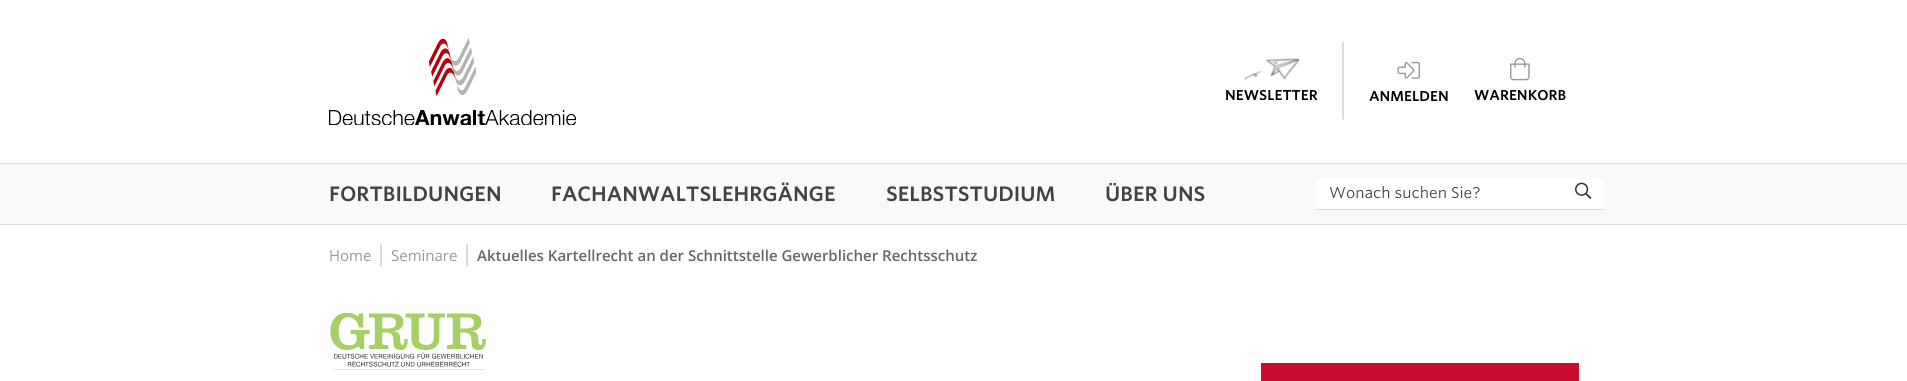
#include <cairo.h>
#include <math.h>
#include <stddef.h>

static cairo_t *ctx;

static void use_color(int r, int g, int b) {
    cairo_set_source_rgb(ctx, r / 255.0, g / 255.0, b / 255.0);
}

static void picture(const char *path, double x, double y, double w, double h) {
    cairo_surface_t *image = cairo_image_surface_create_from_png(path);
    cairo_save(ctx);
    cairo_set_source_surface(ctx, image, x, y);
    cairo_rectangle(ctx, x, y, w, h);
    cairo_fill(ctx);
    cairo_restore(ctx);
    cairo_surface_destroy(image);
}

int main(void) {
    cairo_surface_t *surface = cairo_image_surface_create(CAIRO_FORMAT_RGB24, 1907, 381);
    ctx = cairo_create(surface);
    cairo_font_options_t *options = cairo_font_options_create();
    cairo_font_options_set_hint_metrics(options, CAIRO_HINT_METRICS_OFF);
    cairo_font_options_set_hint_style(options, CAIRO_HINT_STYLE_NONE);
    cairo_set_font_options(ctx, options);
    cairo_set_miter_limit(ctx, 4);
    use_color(255, 255, 255);
    cairo_paint(ctx);
    use_color(220, 220, 220);
    cairo_rectangle(ctx, 0, 224, 1907, 1);
    cairo_fill(ctx);
    picture("img1.png", 429, 38, 47, 58);
    picture("img2.png", 329, 110, 247, 15);
    cairo_new_path(ctx);
    cairo_move_to(ctx, 1344, 42);
    cairo_line_to(ctx, 1344, 120);
    cairo_line_to(ctx, 1342, 119);
    cairo_line_to(ctx, 1342, 42);
    cairo_close_path(ctx);
    cairo_fill(ctx);
    picture("img3.png", 1243, 58, 57, 22);
    cairo_select_font_face(ctx, "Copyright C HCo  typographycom", CAIRO_FONT_SLANT_NORMAL, CAIRO_FONT_WEIGHT_NORMAL);
    cairo_set_font_size(ctx, 13.75);
    use_color(0, 0, 0);
    cairo_move_to(ctx, 1225, 100);
    cairo_show_text(ctx, "NEWSLETTER");
    picture("img4.png", 1397, 61, 23, 18);
    cairo_move_to(ctx, 1369, 101);
    cairo_show_text(ctx, "ANMELDEN");
    picture("img5.png", 1510, 57, 20, 24);
    cairo_move_to(ctx, 1474, 100);
    cairo_show_text(ctx, "WARENKORB");
    use_color(249, 249, 249);
    cairo_rectangle(ctx, 0, 164, 1907, 60);
    cairo_fill(ctx);
    use_color(220, 220, 220);
    cairo_rectangle(ctx, 0, 163, 1907, 1);
    cairo_fill(ctx);
    cairo_set_font_size(ctx, 20);
    use_color(66, 66, 66);
    cairo_move_to(ctx, 329, 201);
    cairo_show_text(ctx, "FORTBILDUNGEN");
    cairo_move_to(ctx, 551, 201);
    cairo_show_text(ctx, "FACHANWALTSLEHRGÄNGE");
    cairo_move_to(ctx, 886, 201);
    cairo_show_text(ctx, "SELBSTSTUDIUM");
    cairo_move_to(ctx, 1105, 201);
    cairo_show_text(ctx, "ÜBER UNS");
    use_color(255, 255, 255);
    cairo_rectangle(ctx, 1316, 179, 288, 30);
    cairo_fill(ctx);
    use_color(220, 220, 220);
    cairo_rectangle(ctx, 1316, 209, 288, 1);
    cairo_fill(ctx);
    cairo_select_font_face(ctx, "Copyright C HCo  typographycom Light", CAIRO_FONT_SLANT_NORMAL, CAIRO_FONT_WEIGHT_NORMAL);
    cairo_set_font_size(ctx, 15);
    use_color(66, 66, 66);
    cairo_move_to(ctx, 1329, 198);
    cairo_show_text(ctx, "Wonach suchen Sie?");
    picture("img6.png", 1575, 182, 17, 17);
    cairo_select_font_face(ctx, "Open Sans", CAIRO_FONT_SLANT_NORMAL, CAIRO_FONT_WEIGHT_NORMAL);
    use_color(153, 153, 153);
    cairo_move_to(ctx, 329, 261);
    cairo_show_text(ctx, "Home");
    cairo_set_font_size(ctx, 22);
    use_color(204, 204, 204);
    cairo_move_to(ctx, 375, 261);
    cairo_show_text(ctx, "|");
    cairo_set_font_size(ctx, 15);
    use_color(153, 153, 153);
    cairo_move_to(ctx, 391, 261);
    cairo_show_text(ctx, "Seminare");
    cairo_set_font_size(ctx, 22);
    use_color(204, 204, 204);
    cairo_move_to(ctx, 461, 261);
    cairo_show_text(ctx, "|");
    cairo_select_font_face(ctx, "Open Sans SemiBold", CAIRO_FONT_SLANT_NORMAL, CAIRO_FONT_WEIGHT_NORMAL);
    cairo_set_font_size(ctx, 15);
    use_color(102, 102, 102);
    cairo_move_to(ctx, 477, 261);
    cairo_show_text(ctx, "Aktuelles Kartellrecht an der Schnittstelle Gewerblicher Rechtsschutz");
    picture("img7.png", 330, 313, 156, 57);
    use_color(200, 13, 49);
    cairo_rectangle(ctx, 1261, 363, 318, 18);
    cairo_fill(ctx);
    cairo_surface_write_to_png(surface, "result.png");
    cairo_font_options_destroy(options);
    cairo_destroy(ctx);
    cairo_surface_destroy(surface);
    return 0;
}
